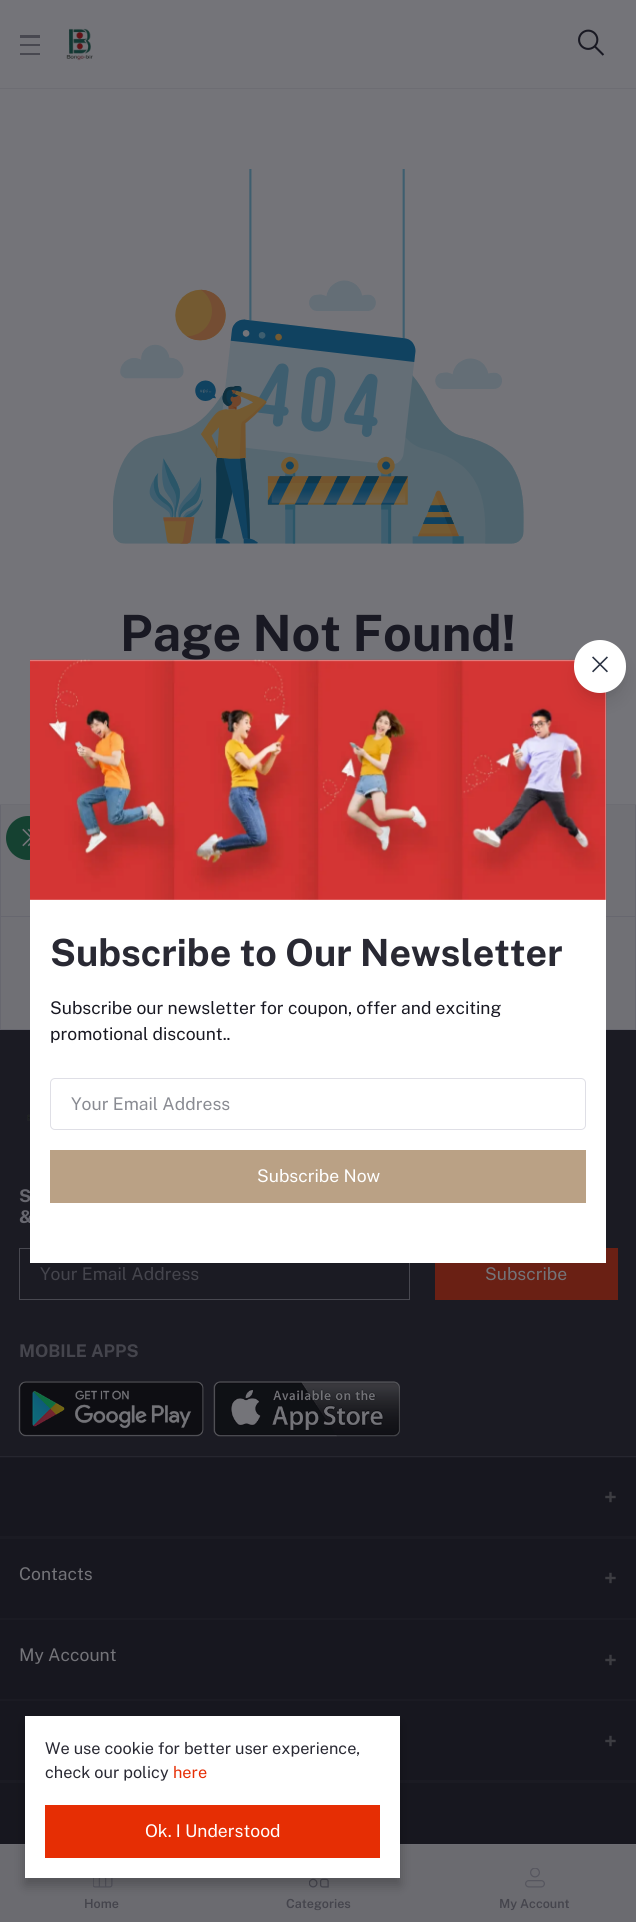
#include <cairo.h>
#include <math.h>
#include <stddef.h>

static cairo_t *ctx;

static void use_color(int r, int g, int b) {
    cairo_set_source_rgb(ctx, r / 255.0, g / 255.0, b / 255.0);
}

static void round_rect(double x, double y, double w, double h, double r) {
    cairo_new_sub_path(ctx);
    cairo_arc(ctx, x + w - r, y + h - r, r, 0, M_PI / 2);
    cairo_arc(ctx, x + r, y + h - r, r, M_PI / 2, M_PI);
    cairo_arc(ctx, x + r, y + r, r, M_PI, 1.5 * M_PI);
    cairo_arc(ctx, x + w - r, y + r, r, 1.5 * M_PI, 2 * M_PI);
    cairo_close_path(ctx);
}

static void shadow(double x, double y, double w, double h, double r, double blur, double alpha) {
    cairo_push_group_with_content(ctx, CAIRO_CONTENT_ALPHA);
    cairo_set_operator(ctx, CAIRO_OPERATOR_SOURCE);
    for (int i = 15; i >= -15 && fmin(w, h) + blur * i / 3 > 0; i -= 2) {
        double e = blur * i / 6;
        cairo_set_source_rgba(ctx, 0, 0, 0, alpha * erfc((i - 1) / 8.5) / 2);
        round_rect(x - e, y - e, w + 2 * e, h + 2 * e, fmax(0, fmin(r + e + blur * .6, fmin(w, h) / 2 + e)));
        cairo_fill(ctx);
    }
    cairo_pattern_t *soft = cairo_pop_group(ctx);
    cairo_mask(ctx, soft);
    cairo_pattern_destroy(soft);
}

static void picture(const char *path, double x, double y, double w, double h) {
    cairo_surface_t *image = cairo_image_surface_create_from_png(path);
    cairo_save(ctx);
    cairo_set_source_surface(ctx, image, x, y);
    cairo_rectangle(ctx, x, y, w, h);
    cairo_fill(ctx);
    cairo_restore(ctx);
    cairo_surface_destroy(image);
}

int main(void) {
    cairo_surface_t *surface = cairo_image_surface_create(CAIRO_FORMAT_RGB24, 636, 1922);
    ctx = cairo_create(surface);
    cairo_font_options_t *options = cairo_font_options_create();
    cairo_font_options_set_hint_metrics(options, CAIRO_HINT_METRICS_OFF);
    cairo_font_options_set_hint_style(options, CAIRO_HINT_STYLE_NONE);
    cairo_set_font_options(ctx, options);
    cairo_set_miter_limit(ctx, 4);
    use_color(116, 116, 121);
    cairo_paint(ctx);
    use_color(109, 109, 115);
    cairo_rectangle(ctx, 0, 88, 636, 1);
    cairo_fill(ctx);
    use_color(72, 72, 80);
    cairo_rectangle(ctx, 20, 35, 20, 3);
    cairo_fill(ctx);
    cairo_rectangle(ctx, 20, 44, 20, 2);
    cairo_fill(ctx);
    cairo_rectangle(ctx, 20, 53, 20, 2);
    cairo_fill(ctx);
    picture("img1.png", 66, 28, 27, 33);
    picture("img2.png", 578, 29, 27, 27);
    picture("img3.png", 113, 169, 411, 375);
    cairo_select_font_face(ctx, "Public Sans", CAIRO_FONT_SLANT_NORMAL, CAIRO_FONT_WEIGHT_BOLD);
    cairo_set_font_size(ctx, 50);
    use_color(25, 25, 35);
    cairo_move_to(ctx, 120, 651);
    cairo_show_text(ctx, "Page Not Found!");
    use_color(112, 112, 117);
    cairo_rectangle(ctx, 1, 805, 634, 224);
    cairo_fill(ctx);
    use_color(109, 109, 115);
    cairo_rectangle(ctx, 0, 804, 636, 1);
    cairo_fill(ctx);
    use_color(103, 103, 111);
    cairo_rectangle(ctx, 0, 805, 1, 225);
    cairo_fill(ctx);
    cairo_rectangle(ctx, 1, 916, 29, 1);
    cairo_fill(ctx);
    cairo_rectangle(ctx, 635, 805, 1, 225);
    cairo_fill(ctx);
    cairo_rectangle(ctx, 606, 916, 30, 1);
    cairo_fill(ctx);
    cairo_rectangle(ctx, 1, 1029, 29, 1);
    cairo_fill(ctx);
    cairo_rectangle(ctx, 606, 1029, 30, 1);
    cairo_fill(ctx);
    use_color(27, 27, 35);
    cairo_rectangle(ctx, 0, 1030, 636, 428);
    cairo_fill(ctx);
    use_color(38, 38, 47);
    cairo_rectangle(ctx, 0, 1456, 636, 1);
    cairo_fill(ctx);
    picture("img4.png", 27, 1114, 3, 7);
    cairo_set_font_size(ctx, 17.5);
    use_color(103, 103, 111);
    cairo_move_to(ctx, 19, 1202);
    cairo_show_text(ctx, "S");
    cairo_move_to(ctx, 19, 1223);
    cairo_show_text(ctx, "&");
    cairo_rectangle(ctx, 19.5, 1248.5, 390, 51);
    use_color(72, 72, 80);
    cairo_set_line_width(ctx, 1);
    cairo_stroke(ctx);
    cairo_select_font_face(ctx, "Public Sans", CAIRO_FONT_SLANT_NORMAL, CAIRO_FONT_WEIGHT_NORMAL);
    use_color(69, 69, 77);
    cairo_move_to(ctx, 40, 1280);
    cairo_show_text(ctx, "Your Email Address");
    use_color(106, 32, 20);
    cairo_rectangle(ctx, 435, 1248, 183, 52);
    cairo_fill(ctx);
    use_color(116, 116, 121);
    cairo_move_to(ctx, 485, 1280);
    cairo_show_text(ctx, "Subscribe");
    cairo_select_font_face(ctx, "Public Sans", CAIRO_FONT_SLANT_NORMAL, CAIRO_FONT_WEIGHT_BOLD);
    use_color(69, 69, 77);
    cairo_move_to(ctx, 19, 1357);
    cairo_show_text(ctx, "MOBILE APPS");
    picture("img5.png", 18, 1381, 186, 56);
    picture("img6.png", 213, 1381, 187, 56);
    use_color(27, 27, 35);
    cairo_rectangle(ctx, 0, 1536, 636, 247);
    cairo_fill(ctx);
    use_color(23, 23, 31);
    cairo_rectangle(ctx, 0, 1458, 636, 78);
    cairo_fill(ctx);
    cairo_set_font_size(ctx, 22);
    use_color(61, 61, 66);
    cairo_move_to(ctx, 604, 1505);
    cairo_show_text(ctx, "+");
    use_color(23, 23, 31);
    cairo_rectangle(ctx, 0, 1539, 636, 79);
    cairo_fill(ctx);
    cairo_select_font_face(ctx, "Public Sans", CAIRO_FONT_SLANT_NORMAL, CAIRO_FONT_WEIGHT_NORMAL);
    cairo_set_font_size(ctx, 17.5);
    use_color(116, 116, 121);
    cairo_move_to(ctx, 19, 1580);
    cairo_show_text(ctx, "Contacts");
    cairo_select_font_face(ctx, "Public Sans", CAIRO_FONT_SLANT_NORMAL, CAIRO_FONT_WEIGHT_BOLD);
    cairo_set_font_size(ctx, 22);
    use_color(61, 61, 66);
    cairo_move_to(ctx, 604, 1586);
    cairo_show_text(ctx, "+");
    use_color(23, 23, 31);
    cairo_rectangle(ctx, 0, 1620, 636, 79);
    cairo_fill(ctx);
    cairo_select_font_face(ctx, "Public Sans", CAIRO_FONT_SLANT_NORMAL, CAIRO_FONT_WEIGHT_NORMAL);
    cairo_set_font_size(ctx, 17.5);
    use_color(116, 116, 121);
    cairo_move_to(ctx, 19, 1661);
    cairo_show_text(ctx, "My Account");
    cairo_select_font_face(ctx, "Public Sans", CAIRO_FONT_SLANT_NORMAL, CAIRO_FONT_WEIGHT_BOLD);
    cairo_set_font_size(ctx, 22);
    use_color(61, 61, 66);
    cairo_move_to(ctx, 604, 1668);
    cairo_show_text(ctx, "+");
    use_color(23, 23, 31);
    cairo_rectangle(ctx, 0, 1701, 636, 79);
    cairo_fill(ctx);
    use_color(61, 61, 66);
    cairo_move_to(ctx, 604, 1749);
    cairo_show_text(ctx, "+");
    use_color(23, 23, 31);
    cairo_rectangle(ctx, 0, 1783, 636, 61);
    cairo_fill(ctx);
    use_color(107, 107, 112);
    cairo_rectangle(ctx, 0, 1845, 636, 77);
    cairo_fill(ctx);
    use_color(109, 109, 115);
    cairo_rectangle(ctx, 0, 1844, 636, 1);
    cairo_fill(ctx);
    picture("img7.png", 93, 1878, 20, 10);
    cairo_select_font_face(ctx, "Public Sans SemiBold", CAIRO_FONT_SLANT_NORMAL, CAIRO_FONT_WEIGHT_NORMAL);
    cairo_set_font_size(ctx, 12.5);
    use_color(69, 69, 77);
    cairo_move_to(ctx, 84, 1908);
    cairo_show_text(ctx, "Home");
    picture("img8.png", 309, 1878, 20, 10);
    cairo_move_to(ctx, 286, 1908);
    cairo_show_text(ctx, "Categories");
    picture("img9.png", 525, 1868, 20, 20);
    cairo_move_to(ctx, 499, 1908);
    cairo_show_text(ctx, "My Account");
    use_color(21, 65, 49);
    cairo_new_path(ctx);
    cairo_arc(ctx, 28, 838, 22, 0, 2 * M_PI);
    cairo_fill(ctx);
    picture("img10.png", 22, 828, 8, 19);
    use_color(255, 255, 255);
    cairo_rectangle(ctx, 30, 660, 576, 603);
    cairo_fill(ctx);
    picture("img12.png", 30, 659, 577, 241);
    use_color(0, 0, 0);
    shadow(576, 648, 48, 47, 23.5, 4, 0.05);
    shadow(578, 656, 45, 45, 22.5, 9.5, 0.1);
    use_color(255, 255, 255);
    round_rect(574, 640, 52, 53, 26);
    cairo_fill(ctx);
    picture("img11.png", 592, 656, 16, 17);
    cairo_select_font_face(ctx, "Public Sans", CAIRO_FONT_SLANT_NORMAL, CAIRO_FONT_WEIGHT_BOLD);
    cairo_set_font_size(ctx, 37.5);
    use_color(41, 41, 51);
    cairo_move_to(ctx, 50, 966);
    cairo_show_text(ctx, "Subscribe to Our Newsletter");
    cairo_select_font_face(ctx, "Public Sans", CAIRO_FONT_SLANT_NORMAL, CAIRO_FONT_WEIGHT_NORMAL);
    cairo_set_font_size(ctx, 17.5);
    use_color(25, 25, 35);
    cairo_move_to(ctx, 50, 1014);
    cairo_show_text(ctx, "Subscribe our newsletter for coupon, offer and exciting");
    cairo_move_to(ctx, 50, 1040);
    cairo_show_text(ctx, "promotional discount..");
    round_rect(50.5, 1078.5, 535, 51, 4.5);
    use_color(223, 223, 230);
    cairo_stroke(ctx);
    use_color(137, 139, 146);
    cairo_move_to(ctx, 71, 1110);
    cairo_show_text(ctx, "Your Email Address");
    use_color(186, 161, 133);
    cairo_rectangle(ctx, 50, 1150, 536, 53);
    cairo_fill(ctx);
    use_color(255, 255, 255);
    cairo_move_to(ctx, 257, 1182);
    cairo_show_text(ctx, "Subscribe Now");
    use_color(0, 0, 0);
    shadow(25, 1724, 375, 161, 0, 6, 0.24);
    use_color(255, 255, 255);
    cairo_rectangle(ctx, 25, 1716, 375, 162);
    cairo_fill(ctx);
    cairo_set_font_size(ctx, 16.25);
    use_color(41, 41, 51);
    cairo_move_to(ctx, 45, 1754);
    cairo_show_text(ctx, "We use cookie for better user experience,");
    cairo_move_to(ctx, 45, 1778);
    cairo_show_text(ctx, "check our policy");
    use_color(230, 46, 4);
    cairo_move_to(ctx, 173, 1778);
    cairo_show_text(ctx, "here");
    cairo_rectangle(ctx, 45, 1805, 335, 53);
    cairo_fill(ctx);
    cairo_set_font_size(ctx, 17.5);
    use_color(255, 255, 255);
    cairo_move_to(ctx, 145, 1837);
    cairo_show_text(ctx, "Ok. I Understood");
    cairo_surface_write_to_png(surface, "result.png");
    cairo_font_options_destroy(options);
    cairo_destroy(ctx);
    cairo_surface_destroy(surface);
    return 0;
}
